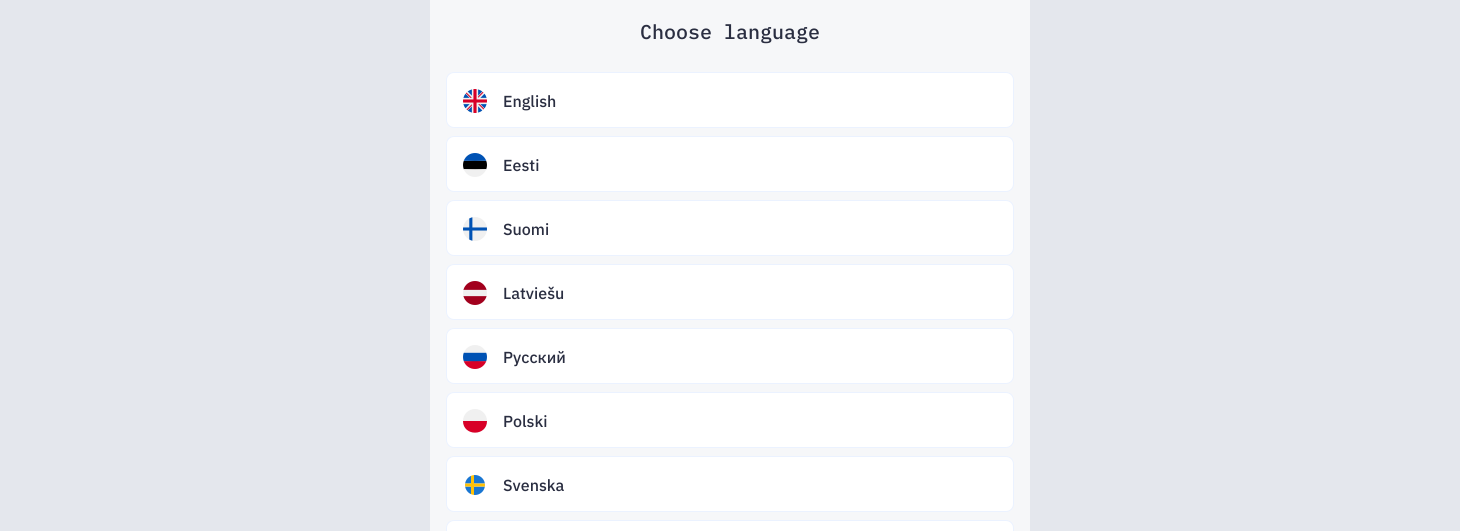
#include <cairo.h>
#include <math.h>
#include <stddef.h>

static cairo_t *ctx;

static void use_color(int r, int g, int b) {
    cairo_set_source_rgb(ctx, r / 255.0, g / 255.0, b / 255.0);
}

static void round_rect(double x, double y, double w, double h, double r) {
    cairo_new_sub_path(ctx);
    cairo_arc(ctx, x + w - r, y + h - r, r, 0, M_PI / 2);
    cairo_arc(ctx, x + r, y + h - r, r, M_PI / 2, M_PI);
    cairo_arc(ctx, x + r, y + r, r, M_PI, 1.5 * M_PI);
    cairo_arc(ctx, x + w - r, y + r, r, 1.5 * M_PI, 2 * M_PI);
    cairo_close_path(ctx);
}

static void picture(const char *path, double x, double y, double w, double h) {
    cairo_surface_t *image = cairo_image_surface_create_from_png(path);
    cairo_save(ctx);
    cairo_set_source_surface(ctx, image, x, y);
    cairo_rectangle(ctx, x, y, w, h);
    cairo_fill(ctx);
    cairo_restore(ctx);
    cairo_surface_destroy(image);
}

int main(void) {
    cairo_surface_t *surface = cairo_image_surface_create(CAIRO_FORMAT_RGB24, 1460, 531);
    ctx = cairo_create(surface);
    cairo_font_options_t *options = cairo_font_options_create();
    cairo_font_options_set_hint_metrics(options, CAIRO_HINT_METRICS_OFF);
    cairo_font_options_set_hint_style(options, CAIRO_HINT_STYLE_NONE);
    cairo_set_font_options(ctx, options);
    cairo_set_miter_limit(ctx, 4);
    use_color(228, 231, 237);
    cairo_paint(ctx);
    use_color(246, 247, 249);
    cairo_rectangle(ctx, 430, 0, 600, 531);
    cairo_fill(ctx);
    cairo_select_font_face(ctx, "IBM Plex Mono Medium", CAIRO_FONT_SLANT_NORMAL, CAIRO_FONT_WEIGHT_NORMAL);
    cairo_set_font_size(ctx, 20);
    use_color(42, 46, 65);
    cairo_move_to(ctx, 640, 39);
    cairo_show_text(ctx, "Choose language");
    use_color(255, 255, 255);
    round_rect(446.5, 72.5, 567, 55, 7.5);
    cairo_fill_preserve(ctx);
    use_color(235, 242, 255);
    cairo_set_line_width(ctx, 1);
    cairo_stroke(ctx);
    picture("img1.png", 463, 89, 24, 24);
    cairo_select_font_face(ctx, "IBM Plex Sans Medium", CAIRO_FONT_SLANT_NORMAL, CAIRO_FONT_WEIGHT_NORMAL);
    cairo_set_font_size(ctx, 16);
    use_color(42, 46, 65);
    cairo_move_to(ctx, 503, 107);
    cairo_show_text(ctx, "English");
    use_color(255, 255, 255);
    round_rect(446.5, 136.5, 567, 55, 7.5);
    cairo_fill_preserve(ctx);
    use_color(235, 242, 255);
    cairo_stroke(ctx);
    picture("img2.png", 463, 153, 24, 24);
    use_color(42, 46, 65);
    cairo_move_to(ctx, 503, 171);
    cairo_show_text(ctx, "Eesti");
    use_color(255, 255, 255);
    round_rect(446.5, 200.5, 567, 55, 7.5);
    cairo_fill_preserve(ctx);
    use_color(235, 242, 255);
    cairo_stroke(ctx);
    picture("img3.png", 463, 217, 24, 24);
    use_color(42, 46, 65);
    cairo_move_to(ctx, 503, 235);
    cairo_show_text(ctx, "Suomi");
    use_color(255, 255, 255);
    round_rect(446.5, 264.5, 567, 55, 7.5);
    cairo_fill_preserve(ctx);
    use_color(235, 242, 255);
    cairo_stroke(ctx);
    picture("img4.png", 463, 281, 24, 24);
    use_color(42, 46, 65);
    cairo_move_to(ctx, 503, 299);
    cairo_show_text(ctx, "Latviešu");
    use_color(255, 255, 255);
    round_rect(446.5, 328.5, 567, 55, 7.5);
    cairo_fill_preserve(ctx);
    use_color(235, 242, 255);
    cairo_stroke(ctx);
    picture("img5.png", 463, 345, 24, 24);
    use_color(42, 46, 65);
    cairo_move_to(ctx, 503, 363);
    cairo_show_text(ctx, "Русский");
    use_color(255, 255, 255);
    round_rect(446.5, 392.5, 567, 55, 7.5);
    cairo_fill_preserve(ctx);
    use_color(235, 242, 255);
    cairo_stroke(ctx);
    use_color(240, 240, 240);
    cairo_arc(ctx, 475, 421, 12, 0, 2 * M_PI);
    cairo_fill(ctx);
    use_color(216, 0, 39);
    cairo_new_path(ctx);
    cairo_move_to(ctx, 487, 421);
    cairo_curve_to(ctx, 487, 436.5, 463, 436.5, 463, 421);
    cairo_fill(ctx);
    use_color(42, 46, 65);
    cairo_move_to(ctx, 503, 427);
    cairo_show_text(ctx, "Polski");
    use_color(255, 255, 255);
    round_rect(446.5, 456.5, 567, 55, 7.5);
    cairo_fill_preserve(ctx);
    use_color(235, 242, 255);
    cairo_stroke(ctx);
    picture("img6.png", 465, 475, 20, 20);
    use_color(42, 46, 65);
    cairo_move_to(ctx, 503, 491);
    cairo_show_text(ctx, "Svenska");
    use_color(255, 255, 255);
    round_rect(446.5, 520.5, 567, 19, 7.5);
    cairo_fill_preserve(ctx);
    use_color(235, 242, 255);
    cairo_stroke(ctx);
    cairo_surface_write_to_png(surface, "result.png");
    cairo_font_options_destroy(options);
    cairo_destroy(ctx);
    cairo_surface_destroy(surface);
    return 0;
}
